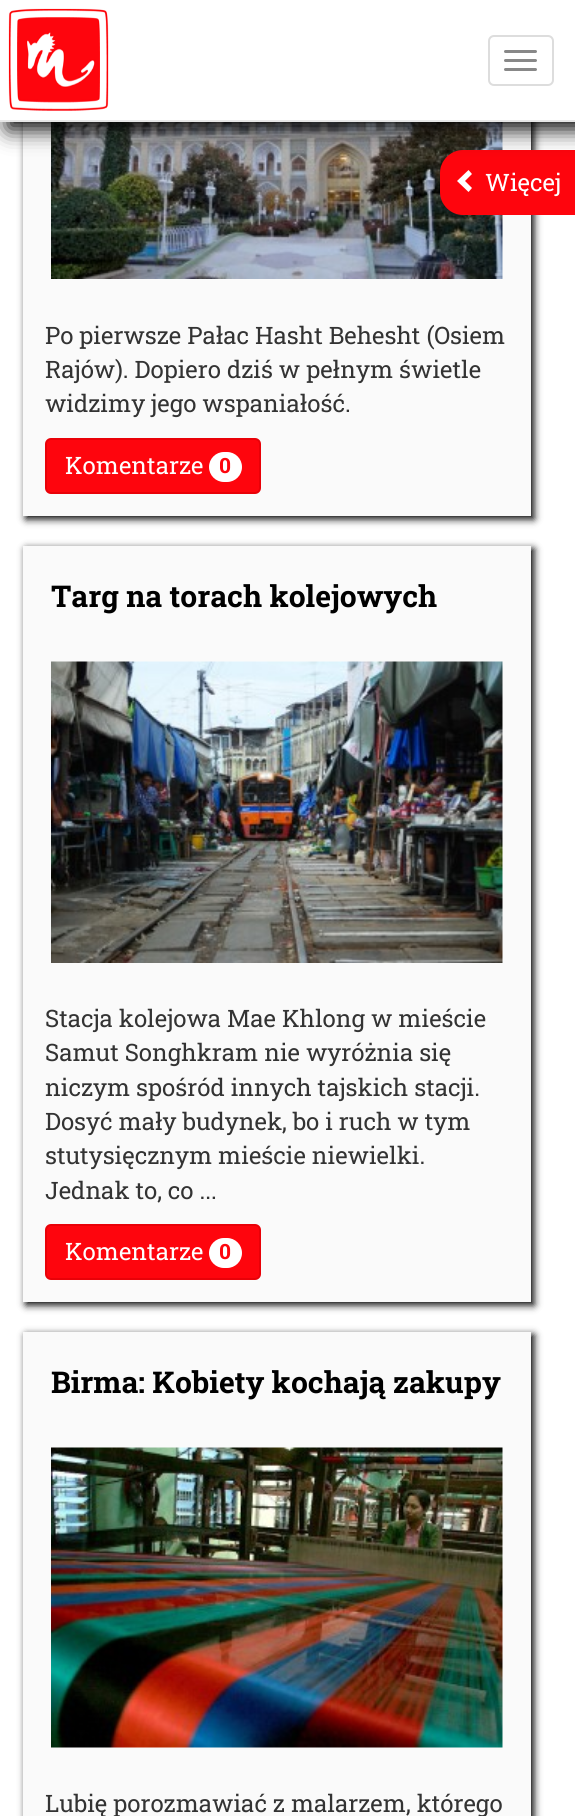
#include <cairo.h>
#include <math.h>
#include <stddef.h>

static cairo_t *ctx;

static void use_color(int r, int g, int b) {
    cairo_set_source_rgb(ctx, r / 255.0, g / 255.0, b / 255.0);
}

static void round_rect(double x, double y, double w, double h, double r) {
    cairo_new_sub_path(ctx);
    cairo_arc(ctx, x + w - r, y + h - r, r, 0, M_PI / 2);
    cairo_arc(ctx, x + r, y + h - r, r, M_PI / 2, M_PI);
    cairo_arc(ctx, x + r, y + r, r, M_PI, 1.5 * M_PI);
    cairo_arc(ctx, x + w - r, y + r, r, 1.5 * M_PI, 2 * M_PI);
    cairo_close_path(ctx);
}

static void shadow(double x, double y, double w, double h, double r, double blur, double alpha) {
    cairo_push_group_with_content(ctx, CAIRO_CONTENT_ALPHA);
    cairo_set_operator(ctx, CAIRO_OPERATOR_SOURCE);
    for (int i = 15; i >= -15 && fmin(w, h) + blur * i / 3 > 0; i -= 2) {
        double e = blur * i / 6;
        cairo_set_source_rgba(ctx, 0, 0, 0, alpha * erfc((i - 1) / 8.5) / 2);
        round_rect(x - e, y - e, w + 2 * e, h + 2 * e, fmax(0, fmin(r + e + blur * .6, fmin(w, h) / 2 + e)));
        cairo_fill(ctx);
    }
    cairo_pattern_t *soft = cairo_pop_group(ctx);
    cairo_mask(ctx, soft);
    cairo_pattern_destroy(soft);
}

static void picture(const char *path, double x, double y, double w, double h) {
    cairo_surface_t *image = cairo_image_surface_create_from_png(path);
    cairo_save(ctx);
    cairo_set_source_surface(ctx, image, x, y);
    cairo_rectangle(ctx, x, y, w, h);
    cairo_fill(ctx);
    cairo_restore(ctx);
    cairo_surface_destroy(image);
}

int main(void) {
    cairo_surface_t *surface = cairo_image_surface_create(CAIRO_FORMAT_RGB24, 575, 1816);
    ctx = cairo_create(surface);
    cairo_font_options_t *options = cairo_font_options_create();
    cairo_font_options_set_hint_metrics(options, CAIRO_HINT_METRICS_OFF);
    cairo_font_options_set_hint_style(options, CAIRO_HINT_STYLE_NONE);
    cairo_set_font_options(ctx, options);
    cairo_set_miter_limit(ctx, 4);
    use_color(255, 255, 255);
    cairo_paint(ctx);
    use_color(0, 0, 0);
    shadow(26, -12, 508, 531, 0, 4, 1);
    use_color(250, 250, 250);
    cairo_rectangle(ctx, 23, 122, 508, 394);
    cairo_fill(ctx);
    picture("img2.png", 51, 122, 452, 157);
    use_color(254, 5, 13);
    cairo_new_path(ctx);
    cairo_move_to(ctx, 463, 150);
    cairo_line_to(ctx, 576, 150);
    cairo_line_to(ctx, 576, 215);
    cairo_line_to(ctx, 463, 215);
    cairo_curve_to(ctx, 450.5, 215, 440, 204.5, 440, 192);
    cairo_line_to(ctx, 440, 173);
    cairo_curve_to(ctx, 440, 160.5, 450.5, 150, 463, 150);
    cairo_close_path(ctx);
    cairo_fill(ctx);
    use_color(0, 0, 0);
    shadow(8, 8, 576, 121, 0, 11, 1);
    use_color(255, 255, 255);
    cairo_rectangle(ctx, 0, 0, 575, 120);
    cairo_fill(ctx);
    use_color(231, 231, 231);
    cairo_rectangle(ctx, 0, 120, 575, 2);
    cairo_fill(ctx);
    picture("img1.png", 8, 8, 101, 103);
    round_rect(489, 36, 64, 49, 5);
    use_color(221, 221, 221);
    cairo_stroke(ctx);
    use_color(136, 136, 136);
    round_rect(504, 50, 33, 3, 1.5);
    cairo_fill(ctx);
    round_rect(504, 59, 33, 3, 1.5);
    cairo_fill(ctx);
    round_rect(504, 68, 33, 3, 1.5);
    cairo_fill(ctx);
    use_color(255, 255, 255);
    cairo_new_path(ctx);
    cairo_move_to(ctx, 472, 174);
    cairo_line_to(ctx, 465, 181);
    cairo_line_to(ctx, 472, 188);
    cairo_line_to(ctx, 468.5, 192);
    cairo_line_to(ctx, 457, 181);
    cairo_line_to(ctx, 468.5, 170);
    cairo_close_path(ctx);
    cairo_fill(ctx);
    cairo_select_font_face(ctx, "Roboto Slab", CAIRO_FONT_SLANT_NORMAL, CAIRO_FONT_WEIGHT_NORMAL);
    cairo_set_font_size(ctx, 24);
    cairo_move_to(ctx, 485, 191);
    cairo_show_text(ctx, "Więcej");
    use_color(51, 51, 51);
    cairo_move_to(ctx, 45, 344);
    cairo_show_text(ctx, "Po pierwsze Pałac Hasht Behesht (Osiem");
    cairo_move_to(ctx, 45, 378);
    cairo_show_text(ctx, "Rajów). Dopiero dziś w pełnym świetle");
    cairo_move_to(ctx, 45, 412);
    cairo_show_text(ctx, "widzimy jego wspaniałość.");
    use_color(254, 5, 13);
    round_rect(46, 439, 214, 54, 5);
    cairo_fill_preserve(ctx);
    use_color(233, 1, 8);
    cairo_stroke(ctx);
    use_color(255, 255, 255);
    cairo_move_to(ctx, 65, 474);
    cairo_show_text(ctx, "Komentarze");
    round_rect(209, 452, 33, 30, 15);
    cairo_fill(ctx);
    cairo_select_font_face(ctx, "Roboto Slab", CAIRO_FONT_SLANT_NORMAL, CAIRO_FONT_WEIGHT_BOLD);
    cairo_set_font_size(ctx, 21);
    use_color(254, 5, 13);
    cairo_move_to(ctx, 219, 473);
    cairo_show_text(ctx, "0");
    use_color(0, 0, 0);
    shadow(26, 549, 508, 756, 0, 4, 1);
    use_color(250, 250, 250);
    cairo_rectangle(ctx, 23, 546, 508, 756);
    cairo_fill(ctx);
    cairo_set_font_size(ctx, 30);
    use_color(0, 0, 0);
    cairo_move_to(ctx, 51, 607);
    cairo_show_text(ctx, "Targ na torach kolejowych");
    picture("img3.png", 51, 661, 452, 302);
    cairo_select_font_face(ctx, "Roboto Slab", CAIRO_FONT_SLANT_NORMAL, CAIRO_FONT_WEIGHT_NORMAL);
    cairo_set_font_size(ctx, 24);
    use_color(51, 51, 51);
    cairo_move_to(ctx, 45, 1027);
    cairo_show_text(ctx, "Stacja kolejowa Mae Khlong w mieście");
    cairo_move_to(ctx, 45, 1061);
    cairo_show_text(ctx, "Samut Songhkram nie wyróżnia się");
    cairo_move_to(ctx, 45, 1096);
    cairo_show_text(ctx, "niczym spośród innych tajskich stacji.");
    cairo_move_to(ctx, 45, 1130);
    cairo_show_text(ctx, "Dosyć mały budynek, bo i ruch w tym");
    cairo_move_to(ctx, 45, 1164);
    cairo_show_text(ctx, "stutysięcznym mieście niewielki.");
    cairo_move_to(ctx, 45, 1199);
    cairo_show_text(ctx, "Jednak to, co ...");
    use_color(254, 5, 13);
    round_rect(46, 1225, 214, 54, 5);
    cairo_fill_preserve(ctx);
    use_color(233, 1, 8);
    cairo_stroke(ctx);
    use_color(255, 255, 255);
    cairo_move_to(ctx, 65, 1260);
    cairo_show_text(ctx, "Komentarze");
    round_rect(209, 1238, 33, 30, 15);
    cairo_fill(ctx);
    cairo_select_font_face(ctx, "Roboto Slab", CAIRO_FONT_SLANT_NORMAL, CAIRO_FONT_WEIGHT_BOLD);
    cairo_set_font_size(ctx, 21);
    use_color(254, 5, 13);
    cairo_move_to(ctx, 219, 1259);
    cairo_show_text(ctx, "0");
    use_color(0, 0, 0);
    shadow(26, 1335, 508, 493, 0, 4, 1);
    use_color(250, 250, 250);
    cairo_rectangle(ctx, 23, 1332, 508, 484);
    cairo_fill(ctx);
    cairo_set_font_size(ctx, 30);
    use_color(0, 0, 0);
    cairo_move_to(ctx, 51, 1393);
    cairo_show_text(ctx, "Birma: Kobiety kochają zakupy");
    picture("img4.png", 51, 1447, 452, 301);
    cairo_select_font_face(ctx, "Roboto Slab", CAIRO_FONT_SLANT_NORMAL, CAIRO_FONT_WEIGHT_NORMAL);
    cairo_set_font_size(ctx, 24);
    use_color(51, 51, 51);
    cairo_move_to(ctx, 45, 1812);
    cairo_show_text(ctx, "Lubię porozmawiać z malarzem, którego");
    cairo_surface_write_to_png(surface, "result.png");
    cairo_font_options_destroy(options);
    cairo_destroy(ctx);
    cairo_surface_destroy(surface);
    return 0;
}
